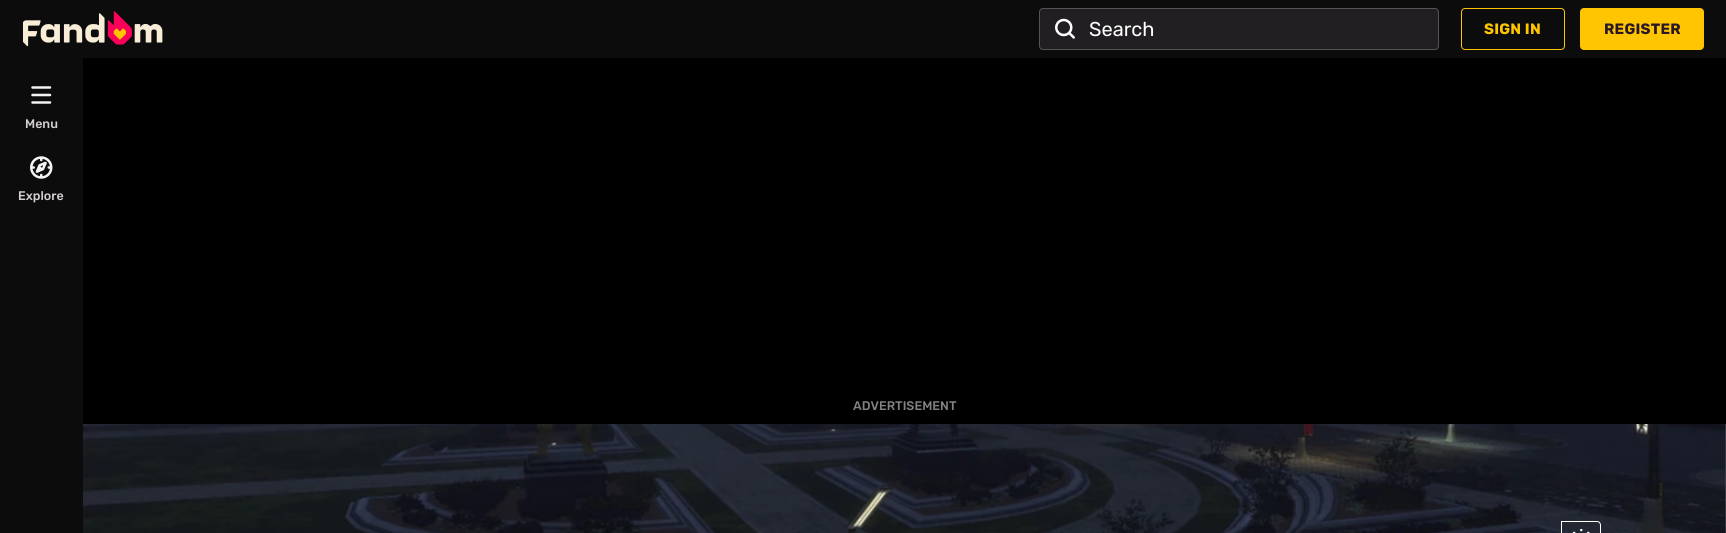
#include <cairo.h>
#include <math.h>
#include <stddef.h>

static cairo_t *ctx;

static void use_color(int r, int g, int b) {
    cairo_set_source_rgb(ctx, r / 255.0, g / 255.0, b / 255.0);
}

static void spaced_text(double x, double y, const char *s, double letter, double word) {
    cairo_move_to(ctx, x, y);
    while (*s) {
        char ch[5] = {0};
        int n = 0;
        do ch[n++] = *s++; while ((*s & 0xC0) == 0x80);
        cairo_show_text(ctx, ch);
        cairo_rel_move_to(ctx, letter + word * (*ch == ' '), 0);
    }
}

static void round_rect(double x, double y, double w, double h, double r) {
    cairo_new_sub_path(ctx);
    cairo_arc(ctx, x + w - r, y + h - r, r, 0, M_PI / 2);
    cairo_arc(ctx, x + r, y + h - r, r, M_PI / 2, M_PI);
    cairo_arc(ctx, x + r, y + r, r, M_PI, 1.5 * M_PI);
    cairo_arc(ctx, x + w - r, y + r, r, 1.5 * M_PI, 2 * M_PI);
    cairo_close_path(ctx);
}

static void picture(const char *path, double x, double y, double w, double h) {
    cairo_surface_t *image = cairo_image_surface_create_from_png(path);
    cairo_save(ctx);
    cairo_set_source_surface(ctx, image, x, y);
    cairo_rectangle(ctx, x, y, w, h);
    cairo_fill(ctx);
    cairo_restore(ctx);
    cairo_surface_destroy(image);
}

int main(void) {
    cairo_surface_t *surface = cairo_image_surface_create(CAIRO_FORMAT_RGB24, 1726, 533);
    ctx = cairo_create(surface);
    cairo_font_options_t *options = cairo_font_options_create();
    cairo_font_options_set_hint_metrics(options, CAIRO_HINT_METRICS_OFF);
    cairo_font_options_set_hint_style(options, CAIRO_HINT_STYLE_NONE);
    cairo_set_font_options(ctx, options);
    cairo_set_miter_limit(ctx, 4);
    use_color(255, 255, 255);
    cairo_paint(ctx);
    use_color(12, 12, 12);
    cairo_rectangle(ctx, 0, 0, 1726, 58);
    cairo_fill(ctx);
    picture("img1.png", 23, 11, 140, 36);
    use_color(33, 31, 33);
    round_rect(1039, 8, 400, 42, 4);
    cairo_fill(ctx);
    round_rect(1039.5, 8.5, 399, 41, 3.5);
    cairo_set_source_rgba(ctx, 0.961, 0.953, 0.961, 0.25);
    cairo_set_line_width(ctx, 1);
    cairo_stroke(ctx);
    picture("img2.png", 1055, 18, 20, 21);
    cairo_select_font_face(ctx, "Rubik", CAIRO_FONT_SLANT_NORMAL, CAIRO_FONT_WEIGHT_NORMAL);
    cairo_set_font_size(ctx, 20);
    use_color(255, 255, 255);
    cairo_move_to(ctx, 1089, 36);
    cairo_show_text(ctx, "Search");
    round_rect(1461.5, 8.5, 103, 41, 3.5);
    use_color(255, 197, 0);
    cairo_stroke(ctx);
    cairo_select_font_face(ctx, "Rubik", CAIRO_FONT_SLANT_NORMAL, CAIRO_FONT_WEIGHT_BOLD);
    cairo_set_font_size(ctx, 15);
    spaced_text(1484, 34, "SIGN IN", 0.25, 0);
    round_rect(1580.5, 8.5, 123, 41, 3.5);
    cairo_fill_preserve(ctx);
    cairo_stroke(ctx);
    use_color(41, 25, 39);
    spaced_text(1604, 34, "REGISTER", 0.25, 0);
    use_color(12, 12, 12);
    cairo_rectangle(ctx, 0, 58, 83, 475);
    cairo_fill(ctx);
    picture("img3.png", 31, 86, 21, 18);
    cairo_select_font_face(ctx, "Rubik Medium", CAIRO_FONT_SLANT_NORMAL, CAIRO_FONT_WEIGHT_NORMAL);
    cairo_set_font_size(ctx, 12.5);
    use_color(214, 208, 213);
    cairo_move_to(ctx, 25, 128);
    cairo_show_text(ctx, "Menu");
    picture("img4.png", 30, 156, 23, 23);
    cairo_move_to(ctx, 18, 200);
    cairo_show_text(ctx, "Explore");
    use_color(0, 0, 0);
    cairo_rectangle(ctx, 83, 58, 1643, 366);
    cairo_fill(ctx);
    use_color(131, 130, 131);
    cairo_move_to(ctx, 853, 410);
    cairo_show_text(ctx, "ADVERTISEMENT");
    picture("img5.png", 83, 424, 1643, 109);
    cairo_new_path(ctx);
    cairo_move_to(ctx, 1561.5, 521.5);
    cairo_line_to(ctx, 1597, 521.5);
    cairo_curve_to(ctx, 1599, 521.5, 1600.5, 523, 1600.5, 525);
    cairo_line_to(ctx, 1600.5, 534);
    cairo_curve_to(ctx, 1600.5, 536, 1599, 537.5, 1597, 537.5);
    cairo_line_to(ctx, 1561.5, 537.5);
    cairo_close_path(ctx);
    use_color(255, 255, 255);
    cairo_stroke(ctx);
    picture("img6.png", 1573, 529, 17, 4);
    cairo_surface_write_to_png(surface, "result.png");
    cairo_font_options_destroy(options);
    cairo_destroy(ctx);
    cairo_surface_destroy(surface);
    return 0;
}
